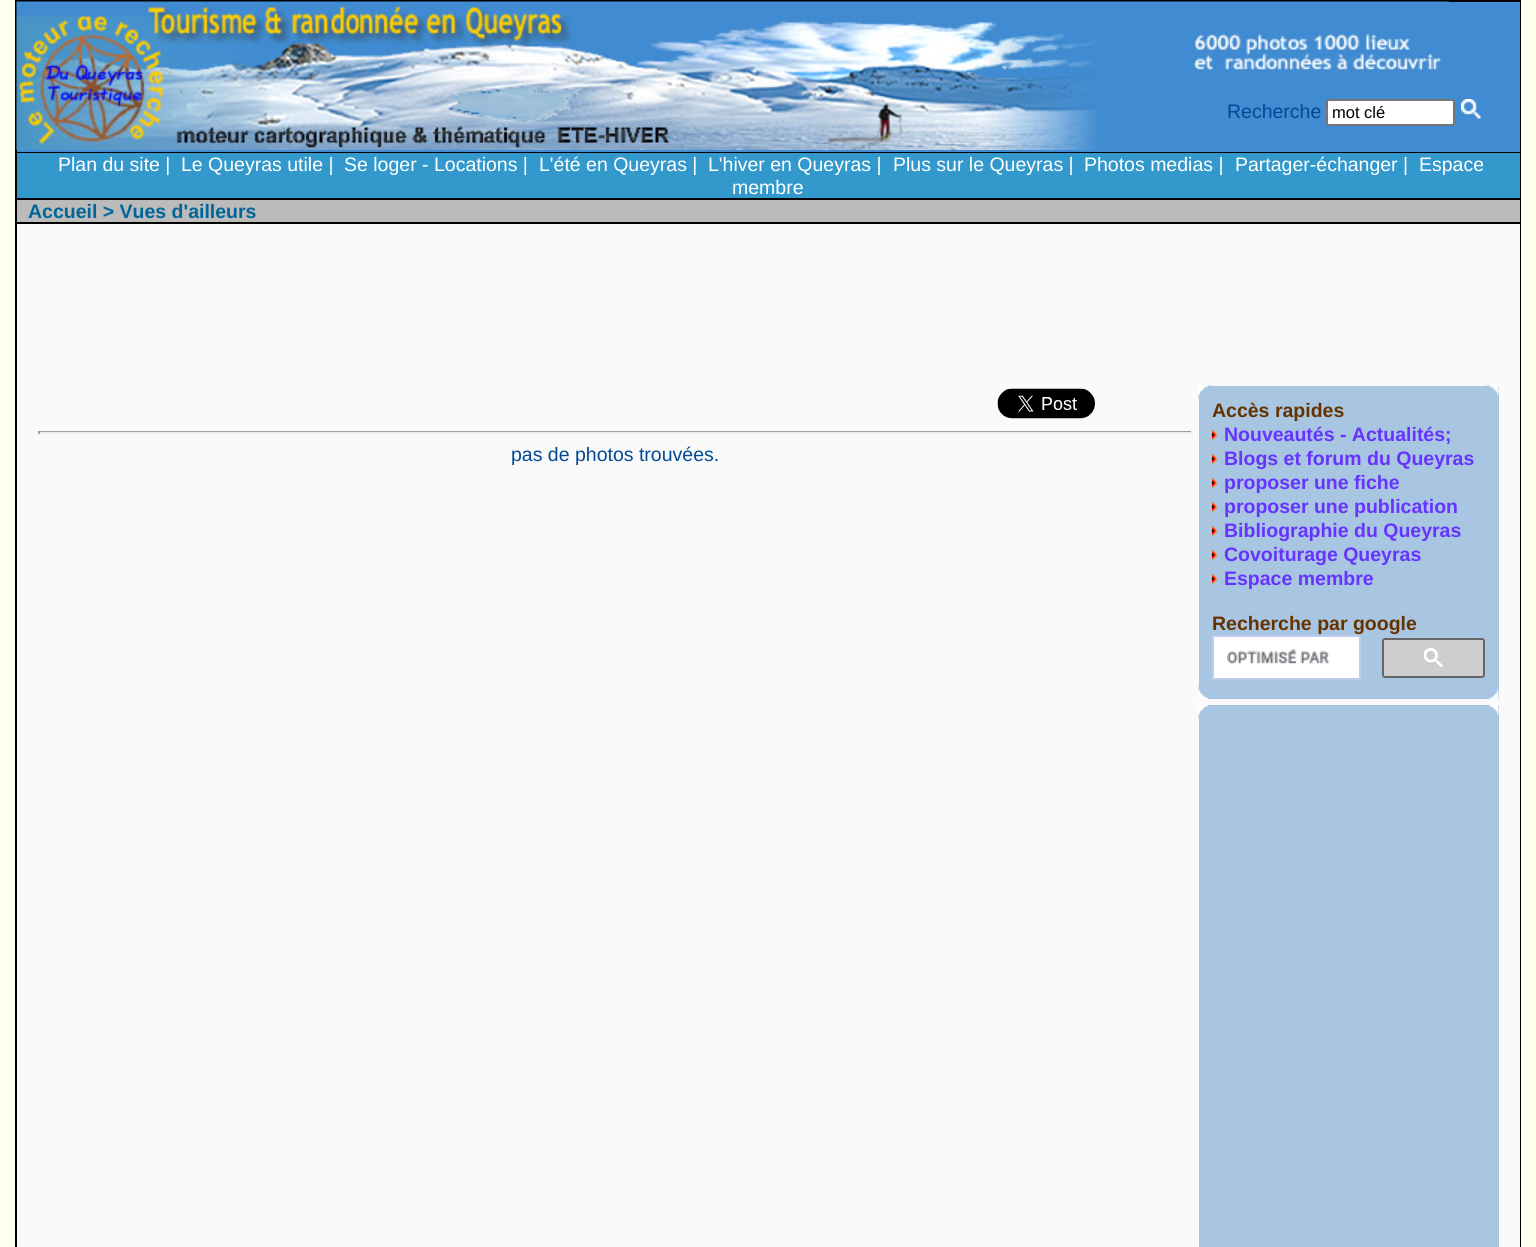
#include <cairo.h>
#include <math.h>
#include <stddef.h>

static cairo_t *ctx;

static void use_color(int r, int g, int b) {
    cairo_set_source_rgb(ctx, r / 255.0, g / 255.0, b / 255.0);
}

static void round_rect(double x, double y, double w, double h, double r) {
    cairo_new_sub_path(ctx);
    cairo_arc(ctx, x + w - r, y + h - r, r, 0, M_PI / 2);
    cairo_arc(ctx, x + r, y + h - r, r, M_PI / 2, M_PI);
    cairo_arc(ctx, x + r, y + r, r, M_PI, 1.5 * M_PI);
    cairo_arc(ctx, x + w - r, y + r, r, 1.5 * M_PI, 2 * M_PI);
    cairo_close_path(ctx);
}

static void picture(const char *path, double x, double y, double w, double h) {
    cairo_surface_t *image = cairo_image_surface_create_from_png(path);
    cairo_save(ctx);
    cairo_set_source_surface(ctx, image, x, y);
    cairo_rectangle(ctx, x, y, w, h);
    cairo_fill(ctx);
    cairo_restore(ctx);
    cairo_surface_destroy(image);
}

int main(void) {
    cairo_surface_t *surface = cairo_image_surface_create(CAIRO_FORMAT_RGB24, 1536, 1247);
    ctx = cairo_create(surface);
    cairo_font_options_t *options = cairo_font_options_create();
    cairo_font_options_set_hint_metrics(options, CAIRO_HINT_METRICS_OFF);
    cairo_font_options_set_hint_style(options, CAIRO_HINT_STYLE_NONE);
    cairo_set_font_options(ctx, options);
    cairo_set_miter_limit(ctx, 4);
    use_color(255, 255, 240);
    cairo_paint(ctx);
    cairo_rectangle(ctx, 16, 1, 1504, 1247);
    use_color(0, 0, 0);
    cairo_stroke(ctx);
    use_color(64, 139, 209);
    cairo_rectangle(ctx, 17, 2, 1503, 150);
    cairo_fill(ctx);
    use_color(0, 0, 0);
    cairo_rectangle(ctx, 17, 152, 1503, 1);
    cairo_fill(ctx);
    picture("img1.png", 16, 1, 1433, 149);
    cairo_select_font_face(ctx, "Liberation Sans", CAIRO_FONT_SLANT_NORMAL, CAIRO_FONT_WEIGHT_NORMAL);
    cairo_set_font_size(ctx, 19.5);
    use_color(0, 74, 149);
    cairo_move_to(ctx, 1227, 118);
    cairo_show_text(ctx, "Recherche");
    use_color(255, 255, 255);
    round_rect(1327, 100, 127, 25, 2);
    cairo_fill_preserve(ctx);
    use_color(118, 118, 118);
    cairo_stroke(ctx);
    cairo_set_font_size(ctx, 16.5);
    use_color(0, 0, 0);
    cairo_move_to(ctx, 1332, 118);
    cairo_show_text(ctx, "mot clé");
    picture("img2.png", 1461, 99, 20, 20);
    use_color(51, 153, 204);
    cairo_rectangle(ctx, 17, 153, 1503, 45);
    cairo_fill(ctx);
    use_color(0, 0, 0);
    cairo_rectangle(ctx, 17, 198, 1503, 2);
    cairo_fill(ctx);
    cairo_set_font_size(ctx, 19.5);
    use_color(255, 255, 255);
    cairo_move_to(ctx, 58, 171);
    cairo_show_text(ctx, "Plan du site |");
    cairo_move_to(ctx, 181, 171);
    cairo_show_text(ctx, "Le Queyras utile |");
    cairo_move_to(ctx, 344, 171);
    cairo_show_text(ctx, "Se loger - Locations |");
    cairo_move_to(ctx, 539, 171);
    cairo_show_text(ctx, "L'été en Queyras |");
    cairo_move_to(ctx, 708, 171);
    cairo_show_text(ctx, "L'hiver en Queyras |");
    cairo_move_to(ctx, 893, 171);
    cairo_show_text(ctx, "Plus sur le Queyras |");
    cairo_move_to(ctx, 1084, 171);
    cairo_show_text(ctx, "Photos medias |");
    cairo_move_to(ctx, 1235, 171);
    cairo_show_text(ctx, "Partager-échanger |");
    cairo_move_to(ctx, 1419, 171);
    cairo_show_text(ctx, "Espace");
    cairo_move_to(ctx, 732, 194);
    cairo_show_text(ctx, "membre");
    use_color(187, 187, 187);
    cairo_rectangle(ctx, 17, 200, 1503, 22);
    cairo_fill(ctx);
    use_color(0, 0, 0);
    cairo_rectangle(ctx, 17, 222, 1503, 2);
    cairo_fill(ctx);
    cairo_select_font_face(ctx, "Liberation Sans", CAIRO_FONT_SLANT_NORMAL, CAIRO_FONT_WEIGHT_BOLD);
    use_color(0, 102, 153);
    cairo_move_to(ctx, 28, 218);
    cairo_show_text(ctx, "Accueil > Vues d'ailleurs");
    use_color(250, 250, 250);
    cairo_rectangle(ctx, 17, 224, 1503, 1023);
    cairo_fill(ctx);
    picture("img3.png", 997, 388, 98, 31);
    use_color(159, 159, 159);
    cairo_rectangle(ctx, 38, 431, 1155, 1);
    cairo_fill(ctx);
    use_color(238, 238, 238);
    cairo_rectangle(ctx, 1191, 431, 2, 3);
    cairo_fill(ctx);
    cairo_rectangle(ctx, 38, 432, 1155, 2);
    cairo_fill(ctx);
    use_color(159, 159, 159);
    cairo_rectangle(ctx, 38, 431, 2, 3);
    cairo_fill(ctx);
    cairo_select_font_face(ctx, "Liberation Sans", CAIRO_FONT_SLANT_NORMAL, CAIRO_FONT_WEIGHT_NORMAL);
    use_color(0, 74, 149);
    cairo_move_to(ctx, 511, 461);
    cairo_show_text(ctx, "pas de photos trouvées.");
    use_color(168, 197, 225);
    cairo_rectangle(ctx, 1199, 386, 300, 313);
    cairo_fill(ctx);
    picture("img4.png", 1198, 385, 14, 14);
    picture("img5.png", 1485, 385, 14, 10);
    cairo_select_font_face(ctx, "Liberation Sans", CAIRO_FONT_SLANT_NORMAL, CAIRO_FONT_WEIGHT_BOLD);
    use_color(102, 51, 0);
    cairo_move_to(ctx, 1212, 417);
    cairo_show_text(ctx, "Accès rapides");
    picture("img6.png", 1212, 430, 5, 10);
    use_color(102, 51, 255);
    cairo_move_to(ctx, 1224, 441);
    cairo_show_text(ctx, "Nouveautés - Actualités;");
    picture("img6.png", 1212, 454, 5, 10);
    cairo_move_to(ctx, 1224, 465);
    cairo_show_text(ctx, "Blogs et forum du Queyras");
    picture("img6.png", 1212, 478, 5, 10);
    cairo_move_to(ctx, 1224, 489);
    cairo_show_text(ctx, "proposer une fiche");
    picture("img6.png", 1212, 502, 5, 10);
    cairo_move_to(ctx, 1224, 513);
    cairo_show_text(ctx, "proposer une publication");
    picture("img6.png", 1212, 526, 5, 10);
    cairo_move_to(ctx, 1224, 537);
    cairo_show_text(ctx, "Bibliographie du Queyras");
    picture("img6.png", 1212, 550, 5, 10);
    cairo_move_to(ctx, 1224, 561);
    cairo_show_text(ctx, "Covoiturage Queyras");
    picture("img6.png", 1212, 574, 5, 10);
    cairo_move_to(ctx, 1224, 585);
    cairo_show_text(ctx, "Espace membre");
    use_color(102, 51, 0);
    cairo_move_to(ctx, 1212, 630);
    cairo_show_text(ctx, "Recherche par google");
    use_color(255, 255, 255);
    cairo_rectangle(ctx, 1213, 636, 147, 43);
    cairo_fill_preserve(ctx);
    use_color(188, 205, 240);
    cairo_stroke(ctx);
    picture("img7.png", 1227, 649, 103, 15);
    use_color(206, 206, 206);
    round_rect(1383, 639, 101, 38, 2);
    cairo_fill_preserve(ctx);
    use_color(102, 102, 102);
    cairo_stroke(ctx);
    picture("img8.png", 1424, 648, 19, 20);
    picture("img9.png", 1198, 685, 10, 14);
    picture("img10.png", 1489, 689, 10, 10);
    use_color(168, 197, 225);
    cairo_rectangle(ctx, 1199, 705, 300, 542);
    cairo_fill(ctx);
    picture("img11.png", 1198, 705, 10, 14);
    picture("img12.png", 1489, 705, 10, 10);
    cairo_surface_write_to_png(surface, "result.png");
    cairo_font_options_destroy(options);
    cairo_destroy(ctx);
    cairo_surface_destroy(surface);
    return 0;
}
